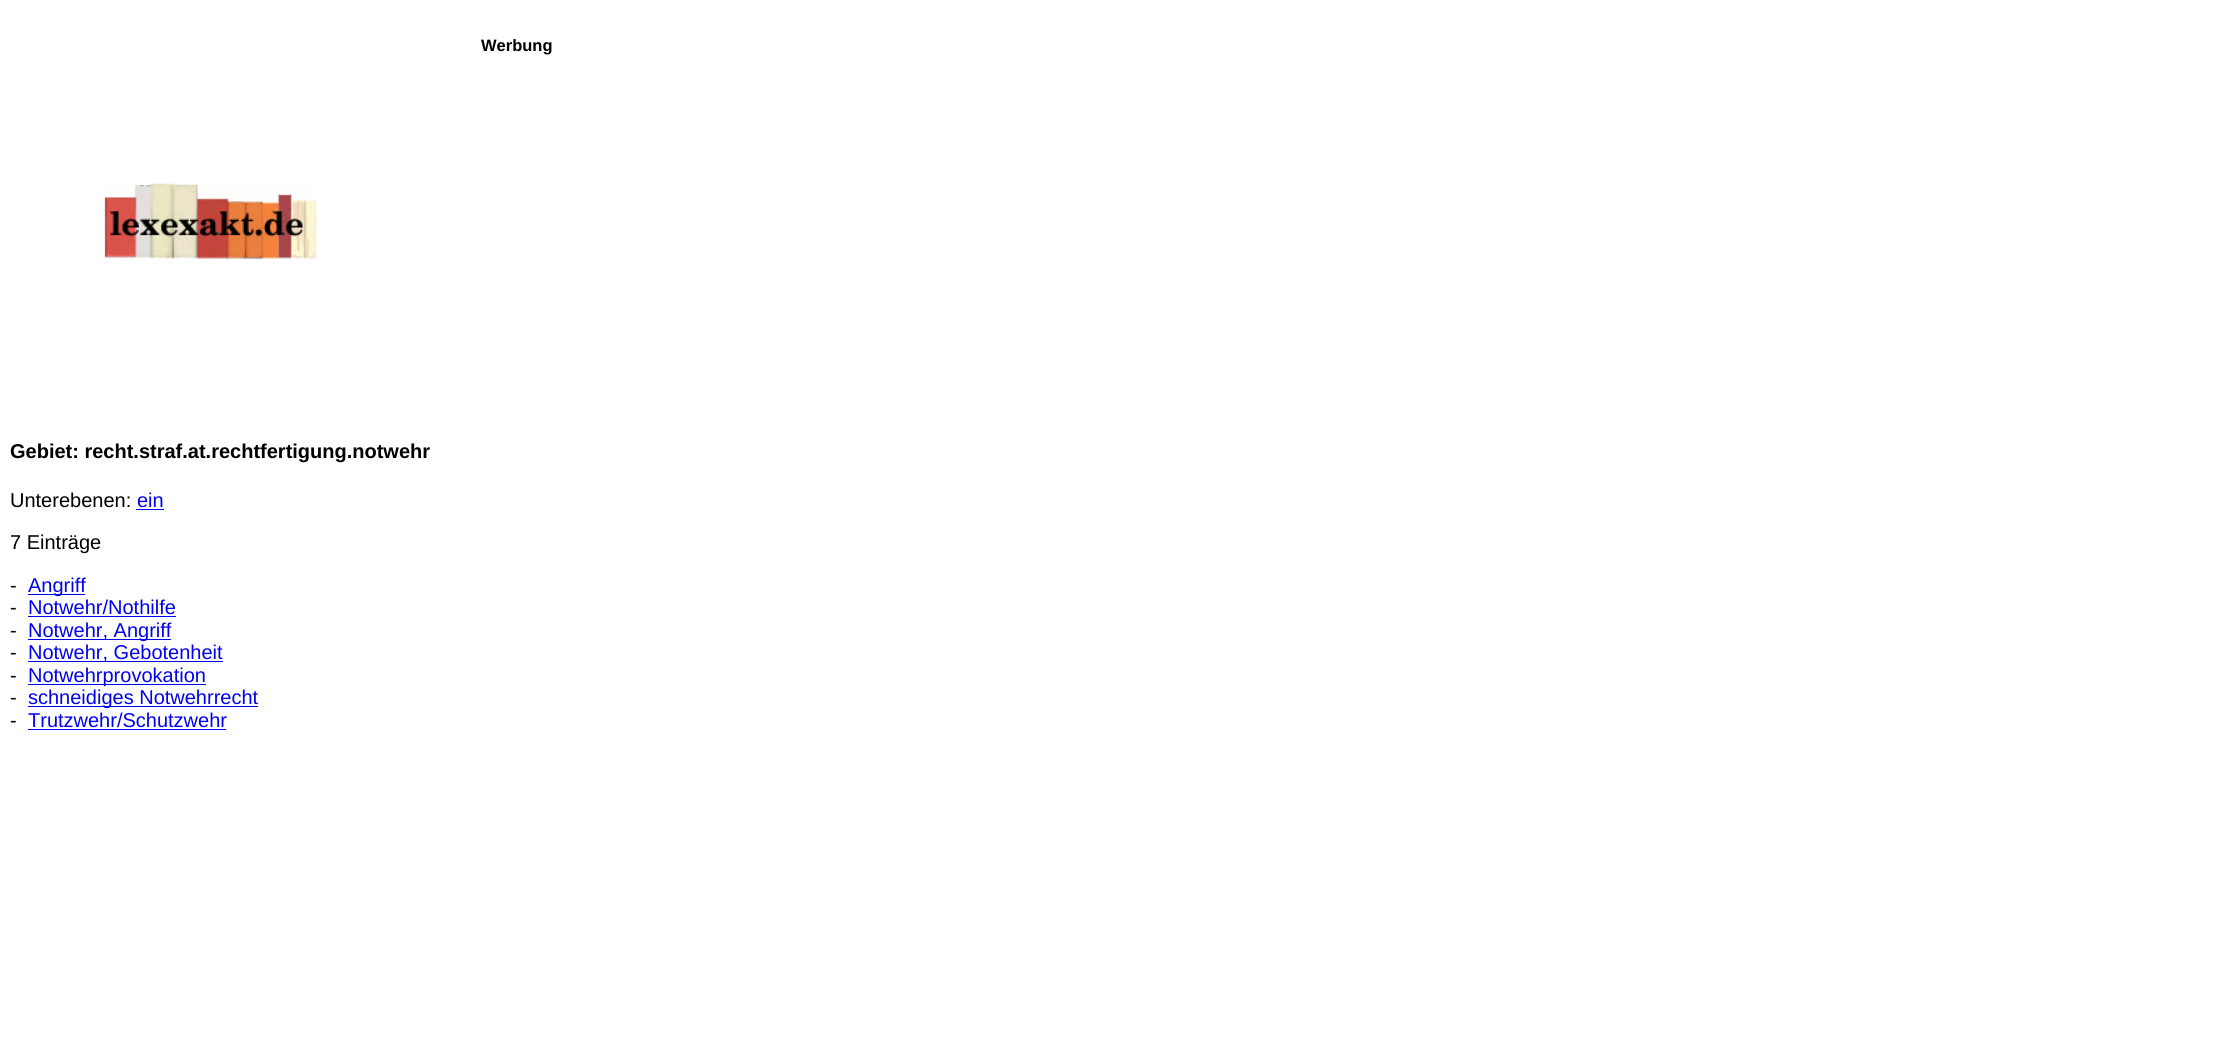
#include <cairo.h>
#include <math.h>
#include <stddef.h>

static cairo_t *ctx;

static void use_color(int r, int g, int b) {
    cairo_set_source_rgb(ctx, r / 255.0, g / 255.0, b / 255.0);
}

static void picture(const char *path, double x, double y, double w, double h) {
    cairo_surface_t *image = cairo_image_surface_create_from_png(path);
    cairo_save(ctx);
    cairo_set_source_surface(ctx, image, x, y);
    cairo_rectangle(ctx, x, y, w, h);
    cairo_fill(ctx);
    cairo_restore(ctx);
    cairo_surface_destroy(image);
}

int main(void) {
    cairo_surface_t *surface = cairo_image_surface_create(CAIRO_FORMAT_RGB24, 2214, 1051);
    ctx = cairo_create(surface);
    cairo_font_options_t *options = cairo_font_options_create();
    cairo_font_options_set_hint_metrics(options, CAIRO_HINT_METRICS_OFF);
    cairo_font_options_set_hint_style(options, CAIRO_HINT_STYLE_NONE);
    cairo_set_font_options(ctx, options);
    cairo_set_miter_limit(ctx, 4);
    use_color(255, 255, 255);
    cairo_paint(ctx);
    cairo_select_font_face(ctx, "Liberation Sans", CAIRO_FONT_SLANT_NORMAL, CAIRO_FONT_WEIGHT_BOLD);
    cairo_set_font_size(ctx, 16.5);
    use_color(0, 0, 0);
    cairo_move_to(ctx, 481, 51);
    cairo_show_text(ctx, "Werbung");
    picture("img1.png", 104, 183, 213, 76);
    cairo_set_font_size(ctx, 20);
    cairo_move_to(ctx, 10, 458);
    cairo_show_text(ctx, "Gebiet: recht.straf.at.rechtfertigung.notwehr");
    cairo_select_font_face(ctx, "Liberation Sans", CAIRO_FONT_SLANT_NORMAL, CAIRO_FONT_WEIGHT_NORMAL);
    cairo_move_to(ctx, 10, 507);
    cairo_show_text(ctx, "Unterebenen:");
    use_color(0, 0, 238);
    cairo_move_to(ctx, 137, 507);
    cairo_show_text(ctx, "ein");
    cairo_rectangle(ctx, 136, 509, 28, 1);
    cairo_fill(ctx);
    use_color(0, 0, 0);
    cairo_move_to(ctx, 10, 549);
    cairo_show_text(ctx, "7 Einträge");
    cairo_move_to(ctx, 10, 592);
    cairo_show_text(ctx, "-");
    use_color(0, 0, 238);
    cairo_rectangle(ctx, 28, 594, 57, 1);
    cairo_fill(ctx);
    cairo_move_to(ctx, 28, 592);
    cairo_show_text(ctx, "Angriff");
    use_color(0, 0, 0);
    cairo_move_to(ctx, 10, 614);
    cairo_show_text(ctx, "-");
    use_color(0, 0, 238);
    cairo_move_to(ctx, 28, 614);
    cairo_show_text(ctx, "Notwehr/Nothilfe");
    cairo_rectangle(ctx, 28, 616, 148, 1);
    cairo_fill(ctx);
    use_color(0, 0, 0);
    cairo_move_to(ctx, 10, 637);
    cairo_show_text(ctx, "-");
    use_color(0, 0, 238);
    cairo_rectangle(ctx, 28, 639, 143, 1);
    cairo_fill(ctx);
    cairo_move_to(ctx, 28, 637);
    cairo_show_text(ctx, "Notwehr, Angriff");
    use_color(0, 0, 0);
    cairo_move_to(ctx, 10, 659);
    cairo_show_text(ctx, "-");
    use_color(0, 0, 238);
    cairo_rectangle(ctx, 28, 661, 195, 1);
    cairo_fill(ctx);
    cairo_move_to(ctx, 28, 659);
    cairo_show_text(ctx, "Notwehr, Gebotenheit");
    use_color(0, 0, 0);
    cairo_move_to(ctx, 10, 682);
    cairo_show_text(ctx, "-");
    use_color(0, 0, 238);
    cairo_rectangle(ctx, 28, 684, 178, 1);
    cairo_fill(ctx);
    cairo_move_to(ctx, 28, 682);
    cairo_show_text(ctx, "Notwehrprovokation");
    use_color(0, 0, 0);
    cairo_move_to(ctx, 10, 704);
    cairo_show_text(ctx, "-");
    use_color(0, 0, 238);
    cairo_rectangle(ctx, 28, 706, 230, 1);
    cairo_fill(ctx);
    cairo_move_to(ctx, 28, 704);
    cairo_show_text(ctx, "schneidiges Notwehrrecht");
    use_color(0, 0, 0);
    cairo_move_to(ctx, 10, 727);
    cairo_show_text(ctx, "-");
    use_color(0, 0, 238);
    cairo_move_to(ctx, 28, 727);
    cairo_show_text(ctx, "Trutzwehr/Schutzwehr");
    cairo_rectangle(ctx, 28, 729, 198, 1);
    cairo_fill(ctx);
    cairo_surface_write_to_png(surface, "result.png");
    cairo_font_options_destroy(options);
    cairo_destroy(ctx);
    cairo_surface_destroy(surface);
    return 0;
}
